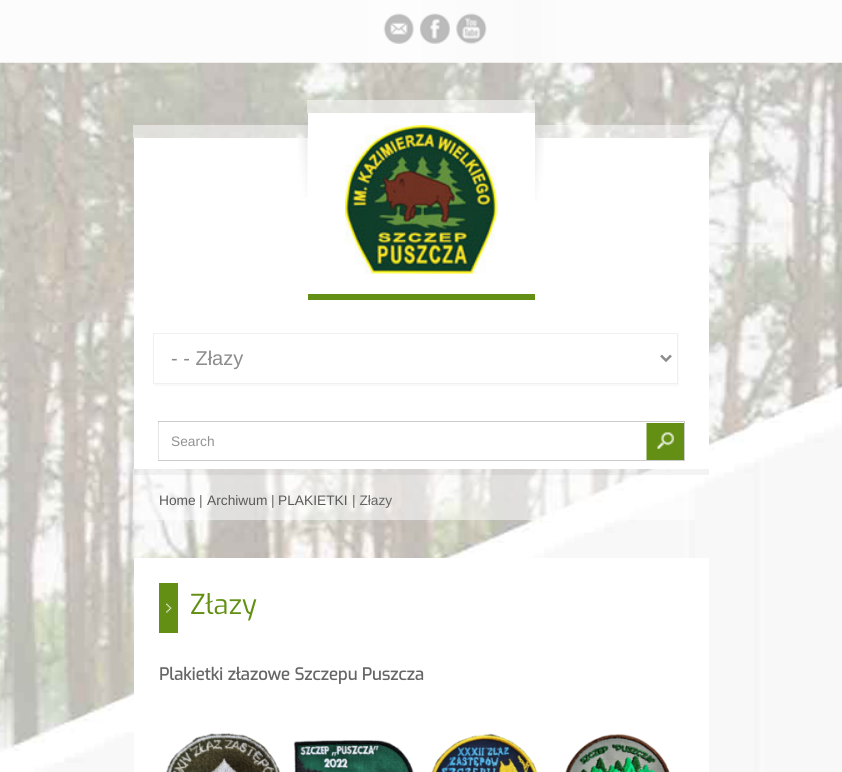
#include <cairo.h>
#include <math.h>
#include <stddef.h>

static cairo_t *ctx;

static void use_color(int r, int g, int b) {
    cairo_set_source_rgb(ctx, r / 255.0, g / 255.0, b / 255.0);
}

static void picture(const char *path, double x, double y, double w, double h) {
    cairo_surface_t *image = cairo_image_surface_create_from_png(path);
    cairo_save(ctx);
    cairo_set_source_surface(ctx, image, x, y);
    cairo_rectangle(ctx, x, y, w, h);
    cairo_fill(ctx);
    cairo_restore(ctx);
    cairo_surface_destroy(image);
}

int main(void) {
    cairo_surface_t *surface = cairo_image_surface_create(CAIRO_FORMAT_RGB24, 842, 772);
    ctx = cairo_create(surface);
    cairo_font_options_t *options = cairo_font_options_create();
    cairo_font_options_set_hint_metrics(options, CAIRO_HINT_METRICS_OFF);
    cairo_font_options_set_hint_style(options, CAIRO_HINT_STYLE_NONE);
    cairo_set_font_options(ctx, options);
    cairo_set_miter_limit(ctx, 4);
    use_color(255, 255, 255);
    cairo_paint(ctx);
    picture("img1.png", 0, 0, 842, 63);
    picture("img5.png", 0, 62, 842, 710);
    cairo_set_source_rgba(ctx, 1, 1, 1, 0.5);
    cairo_rectangle(ctx, 0, 0, 842, 63);
    cairo_fill(ctx);
    picture("img2.png", 383, 13, 31, 31);
    picture("img3.png", 420, 13, 30, 31);
    picture("img4.png", 456, 13, 31, 31);
    cairo_rectangle(ctx, 133, 125, 576, 13);
    cairo_fill(ctx);
    use_color(255, 255, 255);
    cairo_rectangle(ctx, 134, 138, 575, 331);
    cairo_fill(ctx);
    picture("img6.png", 298, 117, 10, 81);
    use_color(99, 144, 20);
    cairo_rectangle(ctx, 308, 294, 227, 6);
    cairo_fill(ctx);
    cairo_set_source_rgba(ctx, 1, 1, 1, 0.5);
    cairo_rectangle(ctx, 307, 100, 228, 13);
    cairo_fill(ctx);
    use_color(255, 255, 255);
    cairo_rectangle(ctx, 308, 113, 227, 25);
    cairo_fill(ctx);
    picture("img7.png", 345, 125, 153, 149);
    picture("img8.png", 535, 117, 9, 84);
    use_color(249, 249, 249);
    cairo_new_path(ctx);
    cairo_move_to(ctx, 154, 384);
    cairo_line_to(ctx, 154, 386);
    cairo_line_to(ctx, 679, 386);
    cairo_line_to(ctx, 679, 335);
    cairo_line_to(ctx, 678, 335);
    cairo_line_to(ctx, 678, 384);
    cairo_close_path(ctx);
    cairo_fill(ctx);
    cairo_rectangle(ctx, 153.5, 333.5, 524, 50);
    use_color(240, 240, 240);
    cairo_set_line_width(ctx, 1);
    cairo_stroke(ctx);
    cairo_new_path(ctx);
    cairo_move_to(ctx, 661, 355.5);
    cairo_line_to(ctx, 666, 360.5);
    cairo_line_to(ctx, 671, 355.5);
    use_color(140, 140, 140);
    cairo_set_line_width(ctx, 2.5);
    cairo_stroke(ctx);
    cairo_select_font_face(ctx, "Liberation Sans", CAIRO_FONT_SLANT_NORMAL, CAIRO_FONT_WEIGHT_NORMAL);
    cairo_set_font_size(ctx, 20);
    cairo_move_to(ctx, 171, 365);
    cairo_show_text(ctx, "- - Złazy");
    cairo_rectangle(ctx, 158.5, 421.5, 526, 39);
    use_color(204, 204, 204);
    cairo_set_line_width(ctx, 1);
    cairo_stroke(ctx);
    use_color(99, 144, 20);
    cairo_rectangle(ctx, 646, 423, 38, 37);
    cairo_fill(ctx);
    cairo_set_source_rgba(ctx, 1, 1, 1, 0.5);
    cairo_rectangle(ctx, 158, 423, 489, 37);
    cairo_fill(ctx);
    cairo_set_font_size(ctx, 13.75);
    use_color(146, 146, 146);
    cairo_move_to(ctx, 171, 446);
    cairo_show_text(ctx, "Search");
    picture("img9.png", 657, 432, 17, 17);
    cairo_set_source_rgba(ctx, 1, 1, 1, 0.5);
    cairo_rectangle(ctx, 133, 469, 562, 51);
    cairo_fill(ctx);
    cairo_set_source_rgba(ctx, 0, 0, 0, 0.05);
    cairo_rectangle(ctx, 134, 469, 575, 6);
    cairo_fill(ctx);
    use_color(89, 89, 89);
    cairo_move_to(ctx, 159, 505);
    cairo_show_text(ctx, "Home");
    use_color(102, 102, 102);
    cairo_move_to(ctx, 199, 505);
    cairo_show_text(ctx, "|");
    use_color(89, 89, 89);
    cairo_move_to(ctx, 207, 505);
    cairo_show_text(ctx, "Archiwum");
    use_color(102, 102, 102);
    cairo_move_to(ctx, 271, 505);
    cairo_show_text(ctx, "|");
    use_color(89, 89, 89);
    cairo_move_to(ctx, 278, 505);
    cairo_show_text(ctx, "PLAKIETKI");
    use_color(102, 102, 102);
    cairo_move_to(ctx, 352, 505);
    cairo_show_text(ctx, "| Złazy");
    use_color(255, 255, 255);
    cairo_rectangle(ctx, 134, 558, 575, 214);
    cairo_fill(ctx);
    use_color(99, 144, 20);
    cairo_rectangle(ctx, 159, 583, 19, 50);
    cairo_fill(ctx);
    picture("img10.png", 166, 603, 6, 10);
    cairo_select_font_face(ctx, "Exo", CAIRO_FONT_SLANT_NORMAL, CAIRO_FONT_WEIGHT_NORMAL);
    cairo_set_font_size(ctx, 27.5);
    cairo_move_to(ctx, 190, 614);
    cairo_show_text(ctx, "Złazy");
    cairo_select_font_face(ctx, "Exo", CAIRO_FONT_SLANT_NORMAL, CAIRO_FONT_WEIGHT_BOLD);
    cairo_set_font_size(ctx, 16.7);
    use_color(102, 102, 102);
    cairo_move_to(ctx, 159, 680);
    cairo_show_text(ctx, "Plakietki złazowe Szczepu Puszcza");
    picture("img11.png", 166, 733, 115, 39);
    picture("img12.png", 293, 740, 121, 32);
    picture("img13.png", 431, 733, 107, 39);
    picture("img14.png", 565, 733, 105, 39);
    cairo_surface_write_to_png(surface, "result.png");
    cairo_font_options_destroy(options);
    cairo_destroy(ctx);
    cairo_surface_destroy(surface);
    return 0;
}
